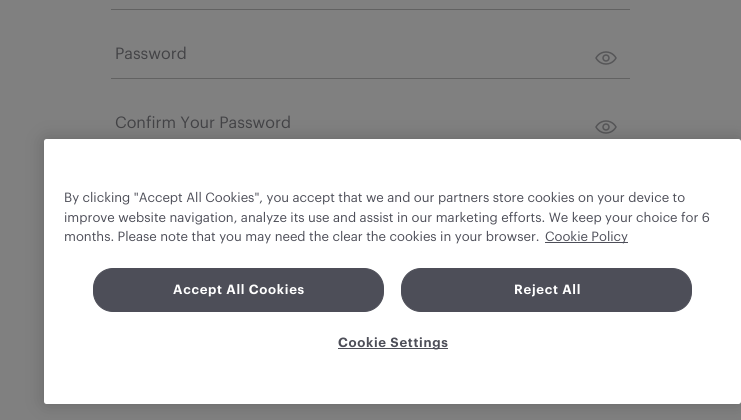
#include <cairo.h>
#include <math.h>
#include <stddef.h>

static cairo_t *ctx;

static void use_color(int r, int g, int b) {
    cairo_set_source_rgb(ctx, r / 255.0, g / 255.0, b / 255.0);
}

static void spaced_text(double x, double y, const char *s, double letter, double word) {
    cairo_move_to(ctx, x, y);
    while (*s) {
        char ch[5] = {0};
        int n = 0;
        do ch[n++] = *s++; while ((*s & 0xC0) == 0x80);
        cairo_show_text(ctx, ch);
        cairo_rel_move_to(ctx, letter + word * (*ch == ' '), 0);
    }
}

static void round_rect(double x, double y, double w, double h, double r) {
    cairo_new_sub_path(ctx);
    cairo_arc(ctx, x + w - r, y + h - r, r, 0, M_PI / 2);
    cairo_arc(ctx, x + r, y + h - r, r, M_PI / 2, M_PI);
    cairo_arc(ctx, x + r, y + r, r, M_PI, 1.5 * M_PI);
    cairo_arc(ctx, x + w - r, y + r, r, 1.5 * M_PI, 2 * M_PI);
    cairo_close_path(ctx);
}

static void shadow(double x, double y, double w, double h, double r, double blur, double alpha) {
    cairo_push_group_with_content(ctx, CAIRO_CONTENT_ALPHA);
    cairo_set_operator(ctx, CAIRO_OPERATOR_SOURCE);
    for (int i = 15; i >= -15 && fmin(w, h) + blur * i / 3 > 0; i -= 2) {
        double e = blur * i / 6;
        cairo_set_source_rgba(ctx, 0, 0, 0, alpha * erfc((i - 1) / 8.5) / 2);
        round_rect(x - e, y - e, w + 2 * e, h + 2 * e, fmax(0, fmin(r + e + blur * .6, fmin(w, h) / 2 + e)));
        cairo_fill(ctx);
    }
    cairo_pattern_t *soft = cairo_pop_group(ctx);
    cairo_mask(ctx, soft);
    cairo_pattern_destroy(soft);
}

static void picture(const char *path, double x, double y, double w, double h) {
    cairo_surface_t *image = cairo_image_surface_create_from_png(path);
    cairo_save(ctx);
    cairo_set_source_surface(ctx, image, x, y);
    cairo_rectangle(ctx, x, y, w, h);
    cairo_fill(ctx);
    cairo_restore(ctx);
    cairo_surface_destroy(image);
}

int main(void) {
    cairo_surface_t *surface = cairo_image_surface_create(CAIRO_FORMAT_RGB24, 741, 420);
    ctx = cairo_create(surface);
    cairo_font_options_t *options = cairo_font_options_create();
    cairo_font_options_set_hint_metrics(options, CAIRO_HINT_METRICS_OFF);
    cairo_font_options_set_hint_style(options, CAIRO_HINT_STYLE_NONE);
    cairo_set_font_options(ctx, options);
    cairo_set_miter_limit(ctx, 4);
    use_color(128, 128, 128);
    cairo_paint(ctx);
    use_color(98, 98, 98);
    cairo_rectangle(ctx, 111, 9, 519, 1);
    cairo_fill(ctx);
    cairo_select_font_face(ctx, "Graphik", CAIRO_FONT_SLANT_NORMAL, CAIRO_FONT_WEIGHT_NORMAL);
    cairo_set_font_size(ctx, 16);
    use_color(67, 67, 70);
    cairo_move_to(ctx, 115, 59);
    cairo_show_text(ctx, "Password");
    picture("img1.png", 595, 51, 22, 14);
    use_color(98, 98, 98);
    cairo_rectangle(ctx, 111, 78, 519, 1);
    cairo_fill(ctx);
    use_color(67, 67, 70);
    cairo_move_to(ctx, 115, 128);
    cairo_show_text(ctx, "Confirm Your Password");
    picture("img1.png", 595, 120, 22, 14);
    use_color(0, 0, 0);
    shadow(44, 139, 697, 265, 2.5, 9, 0.2);
    use_color(255, 255, 255);
    round_rect(44, 139, 697, 265, 2.5);
    cairo_fill(ctx);
    cairo_set_font_size(ctx, 13.1);
    use_color(77, 78, 88);
    cairo_move_to(ctx, 64, 202);
    cairo_show_text(ctx, "By clicking \"Accept All Cookies\", you accept that we and our partners store cookies on your device to");
    cairo_move_to(ctx, 64, 222);
    cairo_show_text(ctx, "improve website navigation, analyze its use and assist in our marketing efforts. We keep your choice for 6");
    cairo_move_to(ctx, 64, 241);
    cairo_show_text(ctx, "months. Please note that you may need the clear the cookies in your browser.");
    cairo_rectangle(ctx, 545, 242, 83, 1);
    cairo_fill(ctx);
    cairo_move_to(ctx, 545, 241);
    cairo_show_text(ctx, "Cookie Policy");
    round_rect(93.5, 268.5, 290, 43, 19.5);
    cairo_fill_preserve(ctx);
    cairo_set_line_width(ctx, 1);
    cairo_stroke(ctx);
    cairo_select_font_face(ctx, "Graphik SemiBold", CAIRO_FONT_SLANT_NORMAL, CAIRO_FONT_WEIGHT_NORMAL);
    use_color(255, 255, 255);
    spaced_text(173, 294, "Accept All Cookies", 0.7, 0);
    use_color(77, 78, 88);
    round_rect(401.5, 268.5, 290, 43, 19.5);
    cairo_fill_preserve(ctx);
    cairo_stroke(ctx);
    use_color(255, 255, 255);
    spaced_text(514, 294, "Reject All", 0.7, 0);
    use_color(77, 78, 88);
    cairo_rectangle(ctx, 338, 348, 110, 1);
    cairo_fill(ctx);
    spaced_text(338, 347, "Cookie Settings", 0.7, 0);
    cairo_surface_write_to_png(surface, "result.png");
    cairo_font_options_destroy(options);
    cairo_destroy(ctx);
    cairo_surface_destroy(surface);
    return 0;
}
